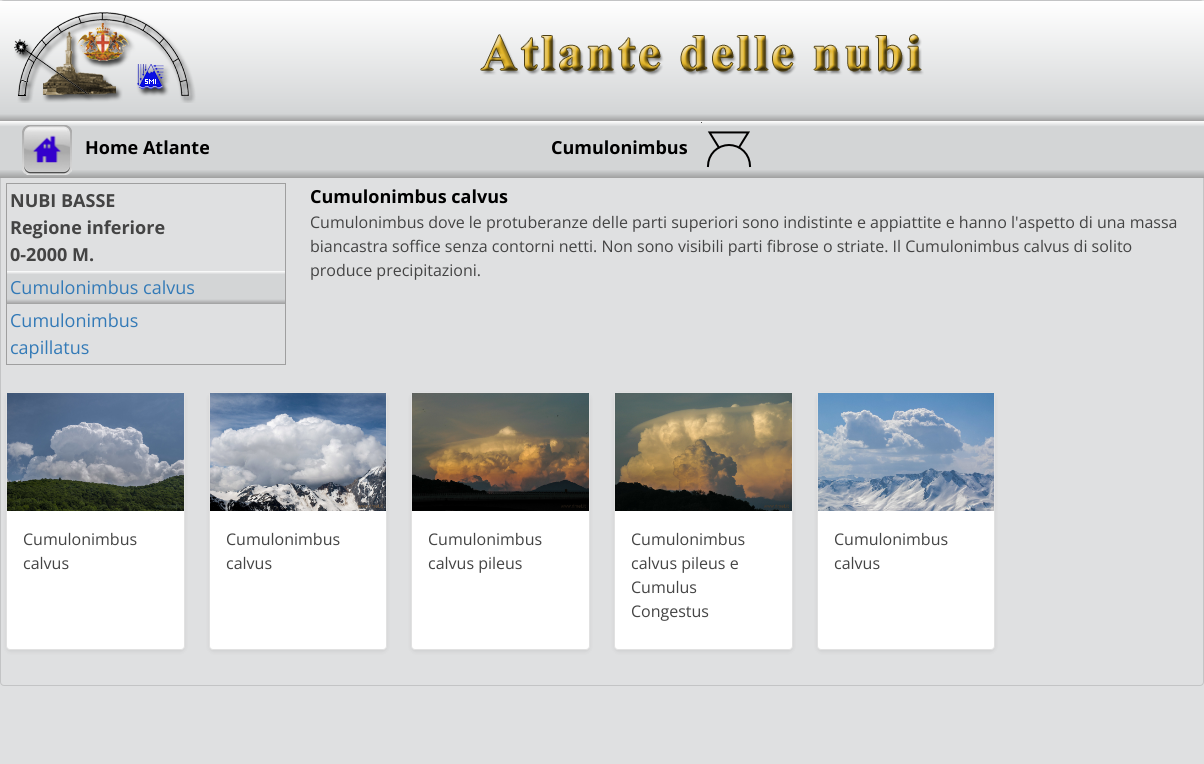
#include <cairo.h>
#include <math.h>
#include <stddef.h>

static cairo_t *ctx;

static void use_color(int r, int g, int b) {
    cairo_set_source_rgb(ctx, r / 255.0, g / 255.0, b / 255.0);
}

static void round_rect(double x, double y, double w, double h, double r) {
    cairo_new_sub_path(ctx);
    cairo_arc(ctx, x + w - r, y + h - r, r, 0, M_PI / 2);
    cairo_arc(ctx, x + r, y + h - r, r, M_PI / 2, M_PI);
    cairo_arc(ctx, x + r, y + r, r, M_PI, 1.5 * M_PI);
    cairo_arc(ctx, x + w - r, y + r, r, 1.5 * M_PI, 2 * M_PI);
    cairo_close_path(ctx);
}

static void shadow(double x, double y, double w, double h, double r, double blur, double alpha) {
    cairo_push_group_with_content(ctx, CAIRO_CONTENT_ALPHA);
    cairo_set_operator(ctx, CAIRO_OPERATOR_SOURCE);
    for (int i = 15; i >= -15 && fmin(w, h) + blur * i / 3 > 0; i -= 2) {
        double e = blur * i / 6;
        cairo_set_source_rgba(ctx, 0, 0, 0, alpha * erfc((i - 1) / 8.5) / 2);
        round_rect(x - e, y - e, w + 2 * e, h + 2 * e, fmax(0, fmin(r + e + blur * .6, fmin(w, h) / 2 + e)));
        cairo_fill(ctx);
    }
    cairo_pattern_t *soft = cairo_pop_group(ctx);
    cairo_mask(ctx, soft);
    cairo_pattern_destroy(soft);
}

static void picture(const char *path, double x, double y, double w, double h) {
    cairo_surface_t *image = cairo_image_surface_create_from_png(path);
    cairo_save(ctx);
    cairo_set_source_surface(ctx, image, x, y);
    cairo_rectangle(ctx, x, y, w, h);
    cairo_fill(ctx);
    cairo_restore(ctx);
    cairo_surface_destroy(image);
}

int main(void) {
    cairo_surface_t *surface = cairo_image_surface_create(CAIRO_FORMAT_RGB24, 1204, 764);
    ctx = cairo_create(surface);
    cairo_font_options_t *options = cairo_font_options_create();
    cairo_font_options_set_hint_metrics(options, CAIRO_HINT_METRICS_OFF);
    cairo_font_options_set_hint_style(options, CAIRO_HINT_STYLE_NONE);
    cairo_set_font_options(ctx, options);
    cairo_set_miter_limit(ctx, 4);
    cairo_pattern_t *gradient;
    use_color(223, 224, 225);
    cairo_paint(ctx);
    round_rect(0.5, 0.5, 1203, 685, 3.5);
    use_color(195, 196, 197);
    cairo_set_line_width(ctx, 1);
    cairo_stroke(ctx);
    gradient = cairo_pattern_create_linear(602, 1, 602, 121);
    cairo_pattern_add_color_stop_rgba(gradient, 0, 1, 1, 1, 1);
    cairo_pattern_add_color_stop_rgba(gradient, 0.94, 0.827, 0.835, 0.839, 1);
    cairo_pattern_add_color_stop_rgba(gradient, 1, 0.624, 0.624, 0.624, 1);
    cairo_set_source(ctx, gradient);
    cairo_pattern_destroy(gradient);
    cairo_rectangle(ctx, 0, 1, 1204, 120);
    cairo_fill(ctx);
    picture("img1.png", 14, 12, 182, 91);
    picture("img2.png", 480, 34, 444, 42);
    gradient = cairo_pattern_create_linear(602, 121, 602, 178);
    cairo_pattern_add_color_stop_rgba(gradient, 0, 1, 1, 1, 1);
    cairo_pattern_add_color_stop_rgba(gradient, 0.1, 0.827, 0.835, 0.839, 1);
    cairo_pattern_add_color_stop_rgba(gradient, 0.85, 0.827, 0.835, 0.839, 1);
    cairo_pattern_add_color_stop_rgba(gradient, 1, 0.624, 0.624, 0.624, 1);
    cairo_set_source(ctx, gradient);
    cairo_pattern_destroy(gradient);
    cairo_rectangle(ctx, 0, 121, 1204, 57);
    cairo_fill(ctx);
    picture("img3.png", 22, 125, 50, 50);
    cairo_select_font_face(ctx, "Open Sans", CAIRO_FONT_SLANT_NORMAL, CAIRO_FONT_WEIGHT_BOLD);
    cairo_set_font_size(ctx, 18);
    use_color(0, 0, 0);
    cairo_move_to(ctx, 85, 154);
    cairo_show_text(ctx, "Home Atlante");
    cairo_move_to(ctx, 551, 154);
    cairo_show_text(ctx, "Cumulonimbus");
    picture("img4.png", 701, 122, 51, 46);
    use_color(159, 159, 159);
    cairo_rectangle(ctx, 6, 183, 280, 1);
    cairo_fill(ctx);
    cairo_rectangle(ctx, 285, 183, 1, 182);
    cairo_fill(ctx);
    cairo_rectangle(ctx, 6, 364, 280, 1);
    cairo_fill(ctx);
    cairo_rectangle(ctx, 6, 183, 1, 182);
    cairo_fill(ctx);
    use_color(68, 68, 68);
    cairo_move_to(ctx, 10, 207);
    cairo_show_text(ctx, "NUBI BASSE");
    cairo_move_to(ctx, 10, 234);
    cairo_show_text(ctx, "Regione inferiore");
    cairo_move_to(ctx, 10, 261);
    cairo_show_text(ctx, "0-2000 M.");
    gradient = cairo_pattern_create_linear(105, 271, 105, 304);
    cairo_pattern_add_color_stop_rgba(gradient, 0, 1, 1, 1, 1);
    cairo_pattern_add_color_stop_rgba(gradient, 0.1, 0.827, 0.835, 0.839, 1);
    cairo_pattern_add_color_stop_rgba(gradient, 0.85, 0.827, 0.835, 0.839, 1);
    cairo_pattern_add_color_stop_rgba(gradient, 1, 0.624, 0.624, 0.624, 1);
    cairo_set_source(ctx, gradient);
    cairo_pattern_destroy(gradient);
    cairo_rectangle(ctx, 7, 271, 195, 33);
    cairo_fill(ctx);
    cairo_select_font_face(ctx, "Open Sans", CAIRO_FONT_SLANT_NORMAL, CAIRO_FONT_WEIGHT_NORMAL);
    use_color(51, 122, 183);
    cairo_move_to(ctx, 10, 294);
    cairo_show_text(ctx, "Cumulonimbus calvus");
    gradient = cairo_pattern_create_linear(244, 271, 244, 304);
    cairo_pattern_add_color_stop_rgba(gradient, 0, 1, 1, 1, 1);
    cairo_pattern_add_color_stop_rgba(gradient, 0.1, 0.827, 0.835, 0.839, 1);
    cairo_pattern_add_color_stop_rgba(gradient, 0.85, 0.827, 0.835, 0.839, 1);
    cairo_pattern_add_color_stop_rgba(gradient, 1, 0.624, 0.624, 0.624, 1);
    cairo_set_source(ctx, gradient);
    cairo_pattern_destroy(gradient);
    cairo_rectangle(ctx, 202, 271, 83, 33);
    cairo_fill(ctx);
    use_color(51, 122, 183);
    cairo_move_to(ctx, 10, 327);
    cairo_show_text(ctx, "Cumulonimbus");
    cairo_move_to(ctx, 10, 354);
    cairo_show_text(ctx, "capillatus");
    cairo_select_font_face(ctx, "Open Sans", CAIRO_FONT_SLANT_NORMAL, CAIRO_FONT_WEIGHT_BOLD);
    use_color(0, 0, 0);
    cairo_move_to(ctx, 310, 203);
    cairo_show_text(ctx, "Cumulonimbus calvus");
    cairo_select_font_face(ctx, "Open Sans", CAIRO_FONT_SLANT_NORMAL, CAIRO_FONT_WEIGHT_NORMAL);
    cairo_set_font_size(ctx, 16);
    use_color(68, 68, 68);
    cairo_move_to(ctx, 310, 228);
    cairo_show_text(ctx, "Cumulonimbus dove le protuberanze delle parti superiori sono indistinte e appiattite e hanno l'aspetto di una massa");
    cairo_move_to(ctx, 310, 252);
    cairo_show_text(ctx, "biancastra soffice senza contorni netti. Non sono visibili parti fibrose o striate. Il Cumulonimbus calvus di solito");
    cairo_move_to(ctx, 310, 276);
    cairo_show_text(ctx, "produce precipitazioni.");
    use_color(0, 0, 0);
    shadow(6, 394, 179, 258, 4, 2, 0.07);
    use_color(255, 255, 255);
    round_rect(6, 392, 179, 258, 4);
    cairo_fill(ctx);
    round_rect(6.5, 392.5, 178, 257, 3.5);
    cairo_set_source_rgba(ctx, 0, 0, 0, 0.12);
    cairo_stroke(ctx);
    picture("img5.png", 7, 393, 177, 118);
    use_color(68, 68, 68);
    cairo_move_to(ctx, 23, 545);
    cairo_show_text(ctx, "Cumulonimbus");
    cairo_move_to(ctx, 23, 569);
    cairo_show_text(ctx, "calvus");
    use_color(0, 0, 0);
    shadow(209, 394, 178, 258, 4, 2, 0.07);
    use_color(255, 255, 255);
    round_rect(209, 392, 178, 258, 4);
    cairo_fill(ctx);
    round_rect(209.5, 392.5, 177, 257, 3.5);
    cairo_set_source_rgba(ctx, 0, 0, 0, 0.12);
    cairo_stroke(ctx);
    picture("img6.png", 210, 393, 176, 118);
    use_color(68, 68, 68);
    cairo_move_to(ctx, 226, 545);
    cairo_show_text(ctx, "Cumulonimbus");
    cairo_move_to(ctx, 226, 569);
    cairo_show_text(ctx, "calvus");
    use_color(0, 0, 0);
    shadow(411, 394, 179, 258, 4, 2, 0.07);
    use_color(255, 255, 255);
    round_rect(411, 392, 179, 258, 4);
    cairo_fill(ctx);
    round_rect(411.5, 392.5, 178, 257, 3.5);
    cairo_set_source_rgba(ctx, 0, 0, 0, 0.12);
    cairo_stroke(ctx);
    picture("img7.png", 412, 393, 177, 118);
    use_color(68, 68, 68);
    cairo_move_to(ctx, 428, 545);
    cairo_show_text(ctx, "Cumulonimbus");
    cairo_move_to(ctx, 428, 569);
    cairo_show_text(ctx, "calvus pileus");
    use_color(0, 0, 0);
    shadow(614, 394, 179, 258, 4, 2, 0.07);
    use_color(255, 255, 255);
    round_rect(614, 392, 179, 258, 4);
    cairo_fill(ctx);
    round_rect(614.5, 392.5, 178, 257, 3.5);
    cairo_set_source_rgba(ctx, 0, 0, 0, 0.12);
    cairo_stroke(ctx);
    picture("img8.png", 615, 393, 177, 118);
    use_color(68, 68, 68);
    cairo_move_to(ctx, 631, 545);
    cairo_show_text(ctx, "Cumulonimbus");
    cairo_move_to(ctx, 631, 569);
    cairo_show_text(ctx, "calvus pileus e");
    cairo_move_to(ctx, 631, 593);
    cairo_show_text(ctx, "Cumulus");
    cairo_move_to(ctx, 631, 617);
    cairo_show_text(ctx, "Congestus");
    use_color(0, 0, 0);
    shadow(817, 394, 178, 258, 4, 2, 0.07);
    use_color(255, 255, 255);
    round_rect(817, 392, 178, 258, 4);
    cairo_fill(ctx);
    round_rect(817.5, 392.5, 177, 257, 3.5);
    cairo_set_source_rgba(ctx, 0, 0, 0, 0.12);
    cairo_stroke(ctx);
    picture("img9.png", 818, 393, 176, 118);
    use_color(68, 68, 68);
    cairo_move_to(ctx, 834, 545);
    cairo_show_text(ctx, "Cumulonimbus");
    cairo_move_to(ctx, 834, 569);
    cairo_show_text(ctx, "calvus");
    cairo_surface_write_to_png(surface, "result.png");
    cairo_font_options_destroy(options);
    cairo_destroy(ctx);
    cairo_surface_destroy(surface);
    return 0;
}
